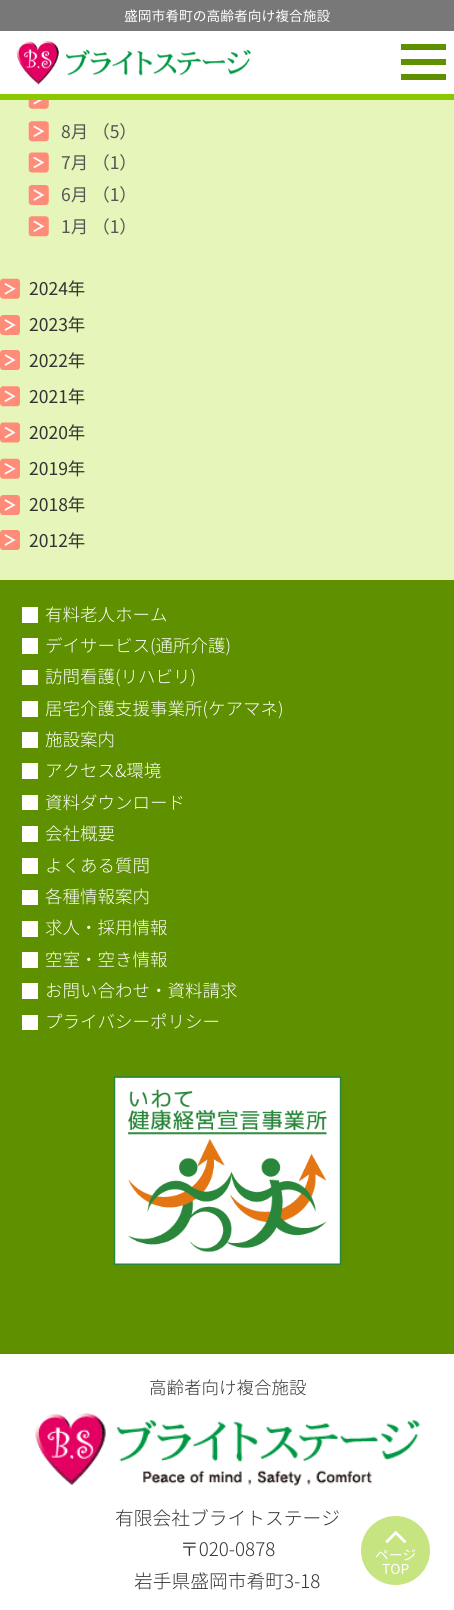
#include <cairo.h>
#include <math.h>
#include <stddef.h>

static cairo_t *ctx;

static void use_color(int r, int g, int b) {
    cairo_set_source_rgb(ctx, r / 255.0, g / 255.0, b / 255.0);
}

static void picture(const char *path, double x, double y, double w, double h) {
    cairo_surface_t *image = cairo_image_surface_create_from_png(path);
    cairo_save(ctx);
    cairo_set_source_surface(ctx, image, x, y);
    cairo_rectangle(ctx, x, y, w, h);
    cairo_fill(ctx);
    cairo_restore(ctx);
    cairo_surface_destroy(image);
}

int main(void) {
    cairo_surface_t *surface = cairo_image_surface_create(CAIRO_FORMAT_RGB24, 454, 1610);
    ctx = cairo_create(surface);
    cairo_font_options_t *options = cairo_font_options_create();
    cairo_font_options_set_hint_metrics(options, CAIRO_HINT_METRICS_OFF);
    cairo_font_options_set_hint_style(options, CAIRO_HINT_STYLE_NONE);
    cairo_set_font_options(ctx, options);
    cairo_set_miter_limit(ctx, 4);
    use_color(230, 245, 185);
    cairo_paint(ctx);
    use_color(255, 255, 255);
    cairo_rectangle(ctx, 0, 31, 454, 63);
    cairo_fill(ctx);
    use_color(140, 200, 0);
    cairo_rectangle(ctx, 0, 94, 454, 6);
    cairo_fill(ctx);
    use_color(120, 120, 120);
    cairo_rectangle(ctx, 0, 0, 454, 31);
    cairo_fill(ctx);
    cairo_select_font_face(ctx, "Noto Sans CJK JP", CAIRO_FONT_SLANT_NORMAL, CAIRO_FONT_WEIGHT_NORMAL);
    cairo_set_font_size(ctx, 13.75);
    use_color(255, 255, 255);
    cairo_move_to(ctx, 124, 21);
    cairo_show_text(ctx, "盛岡市肴町の高齢者向け複合施設");
    picture("img1.png", 16, 41, 235, 44);
    use_color(94, 144, 0);
    cairo_rectangle(ctx, 401, 44, 45, 6);
    cairo_fill(ctx);
    cairo_rectangle(ctx, 401, 59, 45, 6);
    cairo_fill(ctx);
    cairo_rectangle(ctx, 401, 74, 45, 6);
    cairo_fill(ctx);
    picture("img2.png", 28, 100, 21, 9);
    picture("img3.png", 28, 121, 21, 21);
    cairo_set_font_size(ctx, 17.5);
    use_color(85, 85, 85);
    cairo_move_to(ctx, 61, 138);
    cairo_show_text(ctx, "8月 （5）");
    picture("img4.png", 28, 152, 21, 21);
    cairo_move_to(ctx, 61, 169);
    cairo_show_text(ctx, "7月 （1）");
    picture("img5.png", 28, 185, 21, 20);
    cairo_move_to(ctx, 61, 201);
    cairo_show_text(ctx, "6月 （1）");
    picture("img6.png", 28, 216, 21, 21);
    cairo_move_to(ctx, 61, 233);
    cairo_show_text(ctx, "1月 （1）");
    picture("img7.png", 0, 278, 20, 21);
    use_color(51, 51, 51);
    cairo_move_to(ctx, 29, 295);
    cairo_show_text(ctx, "2024年");
    picture("img8.png", 0, 315, 20, 20);
    cairo_move_to(ctx, 29, 331);
    cairo_show_text(ctx, "2023年");
    picture("img8.png", 0, 350, 20, 20);
    cairo_move_to(ctx, 29, 367);
    cairo_show_text(ctx, "2022年");
    picture("img9.png", 0, 386, 20, 21);
    cairo_move_to(ctx, 29, 403);
    cairo_show_text(ctx, "2021年");
    picture("img10.png", 0, 422, 20, 21);
    cairo_move_to(ctx, 29, 439);
    cairo_show_text(ctx, "2020年");
    picture("img7.png", 0, 458, 20, 21);
    cairo_move_to(ctx, 29, 475);
    cairo_show_text(ctx, "2019年");
    picture("img8.png", 0, 495, 20, 20);
    cairo_move_to(ctx, 29, 511);
    cairo_show_text(ctx, "2018年");
    picture("img8.png", 0, 530, 20, 20);
    cairo_move_to(ctx, 29, 547);
    cairo_show_text(ctx, "2012年");
    use_color(94, 144, 0);
    cairo_rectangle(ctx, 0, 580, 454, 774);
    cairo_fill(ctx);
    use_color(255, 255, 255);
    cairo_rectangle(ctx, 22, 607, 16, 16);
    cairo_fill(ctx);
    cairo_select_font_face(ctx, "Noto Sans CJK JP Light", CAIRO_FONT_SLANT_NORMAL, CAIRO_FONT_WEIGHT_NORMAL);
    cairo_move_to(ctx, 45, 621);
    cairo_show_text(ctx, "有料老人ホーム");
    cairo_rectangle(ctx, 22, 638, 16, 16);
    cairo_fill(ctx);
    cairo_move_to(ctx, 45, 652);
    cairo_show_text(ctx, "デイサービス(通所介護)");
    cairo_rectangle(ctx, 22, 670, 16, 15);
    cairo_fill(ctx);
    cairo_move_to(ctx, 45, 683);
    cairo_show_text(ctx, "訪問看護(リハビリ)");
    cairo_rectangle(ctx, 22, 701, 16, 16);
    cairo_fill(ctx);
    cairo_move_to(ctx, 45, 715);
    cairo_show_text(ctx, "居宅介護支援事業所(ケアマネ)");
    cairo_rectangle(ctx, 22, 732, 16, 16);
    cairo_fill(ctx);
    cairo_move_to(ctx, 45, 746);
    cairo_show_text(ctx, "施設案内");
    cairo_rectangle(ctx, 22, 763, 16, 16);
    cairo_fill(ctx);
    cairo_move_to(ctx, 45, 777);
    cairo_show_text(ctx, "アクセス&環境");
    cairo_rectangle(ctx, 22, 795, 16, 15);
    cairo_fill(ctx);
    cairo_move_to(ctx, 45, 809);
    cairo_show_text(ctx, "資料ダウンロード");
    cairo_rectangle(ctx, 22, 826, 16, 16);
    cairo_fill(ctx);
    cairo_move_to(ctx, 45, 840);
    cairo_show_text(ctx, "会社概要");
    cairo_rectangle(ctx, 22, 858, 16, 16);
    cairo_fill(ctx);
    cairo_move_to(ctx, 45, 872);
    cairo_show_text(ctx, "よくある質問");
    cairo_rectangle(ctx, 22, 890, 16, 15);
    cairo_fill(ctx);
    cairo_move_to(ctx, 45, 903);
    cairo_show_text(ctx, "各種情報案内");
    cairo_rectangle(ctx, 22, 921, 16, 16);
    cairo_fill(ctx);
    cairo_move_to(ctx, 45, 934);
    cairo_show_text(ctx, "求人・採用情報");
    cairo_rectangle(ctx, 22, 952, 16, 16);
    cairo_fill(ctx);
    cairo_move_to(ctx, 45, 966);
    cairo_show_text(ctx, "空室・空き情報");
    cairo_rectangle(ctx, 22, 983, 16, 16);
    cairo_fill(ctx);
    cairo_move_to(ctx, 45, 997);
    cairo_show_text(ctx, "お問い合わせ・資料請求");
    cairo_rectangle(ctx, 22, 1015, 16, 15);
    cairo_fill(ctx);
    cairo_move_to(ctx, 45, 1028);
    cairo_show_text(ctx, "プライバシーポリシー");
    picture("img11.png", 113, 1076, 229, 189);
    cairo_rectangle(ctx, 0, 1354, 454, 256);
    cairo_fill(ctx);
    use_color(51, 51, 51);
    cairo_move_to(ctx, 149, 1394);
    cairo_show_text(ctx, "高齢者向け複合施設");
    picture("img12.png", 35, 1413, 385, 73);
    cairo_set_font_size(ctx, 18.75);
    cairo_move_to(ctx, 115, 1525);
    cairo_show_text(ctx, "有限会社ブライトステージ");
    cairo_move_to(ctx, 180, 1556);
    cairo_show_text(ctx, "〒020-0878");
    cairo_move_to(ctx, 134, 1588);
    cairo_show_text(ctx, "岩手県盛岡市肴町3-18");
    use_color(198, 228, 128);
    cairo_new_path(ctx);
    cairo_arc(ctx, 395.5, 1550.5, 34.5, 0, 2 * M_PI);
    cairo_fill(ctx);
    picture("img13.png", 385, 1531, 22, 12);
    cairo_select_font_face(ctx, "Noto Sans CJK JP", CAIRO_FONT_SLANT_NORMAL, CAIRO_FONT_WEIGHT_NORMAL);
    cairo_set_font_size(ctx, 13.75);
    use_color(255, 255, 255);
    cairo_move_to(ctx, 375, 1560);
    cairo_show_text(ctx, "ページ");
    cairo_move_to(ctx, 382, 1574);
    cairo_show_text(ctx, "TOP");
    cairo_surface_write_to_png(surface, "result.png");
    cairo_font_options_destroy(options);
    cairo_destroy(ctx);
    cairo_surface_destroy(surface);
    return 0;
}
